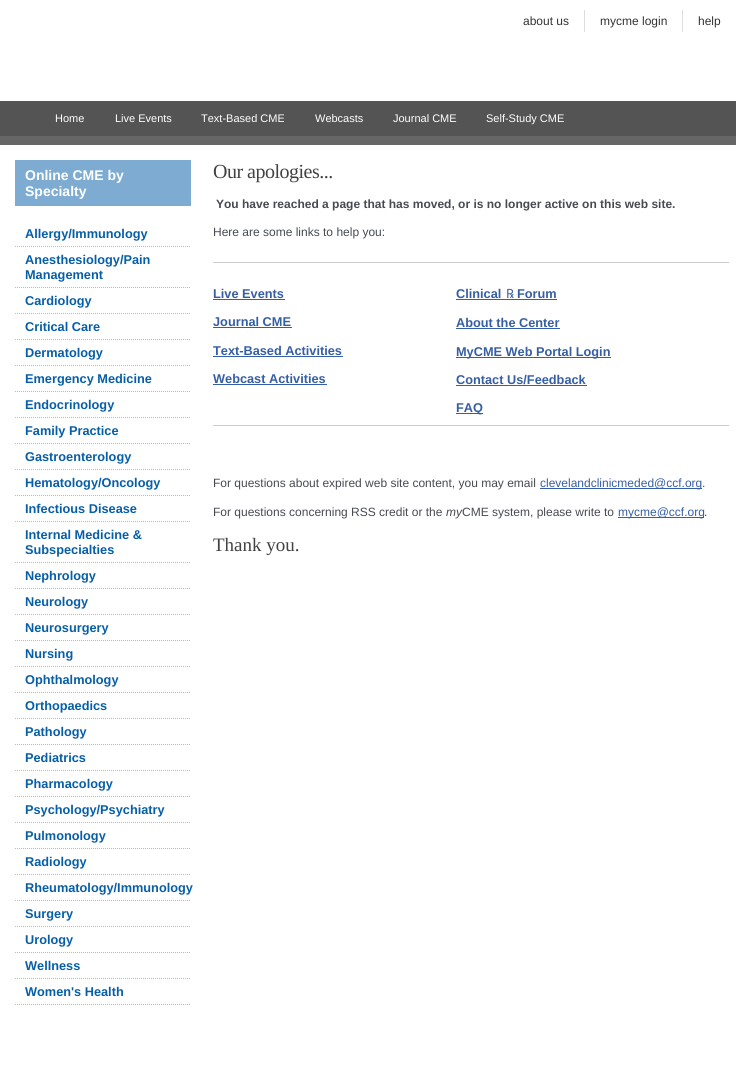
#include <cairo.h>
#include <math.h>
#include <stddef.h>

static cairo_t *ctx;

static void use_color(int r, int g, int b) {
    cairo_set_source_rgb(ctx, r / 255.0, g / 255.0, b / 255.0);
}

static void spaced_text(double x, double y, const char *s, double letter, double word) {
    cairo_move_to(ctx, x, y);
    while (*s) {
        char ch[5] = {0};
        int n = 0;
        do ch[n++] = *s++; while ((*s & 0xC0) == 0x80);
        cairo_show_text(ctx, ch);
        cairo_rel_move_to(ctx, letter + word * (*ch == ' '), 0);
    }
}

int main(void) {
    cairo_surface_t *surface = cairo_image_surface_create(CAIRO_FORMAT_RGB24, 736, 1072);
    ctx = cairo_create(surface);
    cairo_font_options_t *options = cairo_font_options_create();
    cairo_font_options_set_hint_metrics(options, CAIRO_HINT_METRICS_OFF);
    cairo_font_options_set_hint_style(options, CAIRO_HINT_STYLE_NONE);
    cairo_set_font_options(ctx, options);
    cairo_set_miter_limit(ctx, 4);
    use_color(255, 255, 255);
    cairo_paint(ctx);
    cairo_select_font_face(ctx, "Liberation Sans", CAIRO_FONT_SLANT_NORMAL, CAIRO_FONT_WEIGHT_NORMAL);
    cairo_set_font_size(ctx, 12);
    use_color(51, 51, 51);
    cairo_move_to(ctx, 523, 25);
    cairo_show_text(ctx, "about us");
    use_color(221, 221, 221);
    cairo_rectangle(ctx, 584, 10, 1, 22);
    cairo_fill(ctx);
    use_color(51, 51, 51);
    cairo_move_to(ctx, 600, 25);
    cairo_show_text(ctx, "mycme login");
    use_color(221, 221, 221);
    cairo_rectangle(ctx, 682, 10, 1, 22);
    cairo_fill(ctx);
    use_color(51, 51, 51);
    cairo_move_to(ctx, 698, 25);
    cairo_show_text(ctx, "help");
    use_color(102, 102, 102);
    cairo_rectangle(ctx, 0, 136, 736, 9);
    cairo_fill(ctx);
    use_color(85, 84, 84);
    cairo_rectangle(ctx, 0, 101, 736, 35);
    cairo_fill(ctx);
    cairo_set_font_size(ctx, 11);
    use_color(255, 255, 255);
    cairo_move_to(ctx, 55, 122);
    cairo_show_text(ctx, "Home");
    cairo_move_to(ctx, 115, 122);
    cairo_show_text(ctx, "Live Events");
    cairo_move_to(ctx, 201, 122);
    cairo_show_text(ctx, "Text-Based CME");
    cairo_move_to(ctx, 315, 122);
    cairo_show_text(ctx, "Webcasts");
    cairo_move_to(ctx, 393, 122);
    cairo_show_text(ctx, "Journal CME");
    cairo_move_to(ctx, 486, 122);
    cairo_show_text(ctx, "Self-Study CME");
    use_color(125, 171, 210);
    cairo_rectangle(ctx, 15, 160, 176, 46);
    cairo_fill(ctx);
    cairo_select_font_face(ctx, "Liberation Sans", CAIRO_FONT_SLANT_NORMAL, CAIRO_FONT_WEIGHT_BOLD);
    cairo_set_font_size(ctx, 14);
    use_color(255, 255, 255);
    cairo_move_to(ctx, 25, 180);
    cairo_show_text(ctx, "Online CME by");
    cairo_move_to(ctx, 25, 196);
    cairo_show_text(ctx, "Specialty");
    cairo_new_path(ctx);
    cairo_move_to(ctx, 15, 246.5);
    cairo_line_to(ctx, 191, 246.5);
    use_color(187, 187, 187);
    cairo_set_line_width(ctx, 1);
    cairo_set_dash(ctx, (double[]){1, 1}, 2, 0);
    cairo_stroke(ctx);
    cairo_set_font_size(ctx, 12.75);
    use_color(6, 94, 168);
    cairo_move_to(ctx, 25, 238);
    cairo_show_text(ctx, "Allergy/Immunology");
    cairo_new_path(ctx);
    cairo_move_to(ctx, 15, 287.5);
    cairo_line_to(ctx, 191, 287.5);
    use_color(187, 187, 187);
    cairo_stroke(ctx);
    use_color(6, 94, 168);
    cairo_move_to(ctx, 25, 264);
    cairo_show_text(ctx, "Anesthesiology/Pain");
    cairo_move_to(ctx, 25, 279);
    cairo_show_text(ctx, "Management");
    cairo_new_path(ctx);
    cairo_move_to(ctx, 15, 313.5);
    cairo_line_to(ctx, 191, 313.5);
    use_color(187, 187, 187);
    cairo_stroke(ctx);
    use_color(6, 94, 168);
    cairo_move_to(ctx, 25, 305);
    cairo_show_text(ctx, "Cardiology");
    cairo_new_path(ctx);
    cairo_move_to(ctx, 15, 339.5);
    cairo_line_to(ctx, 191, 339.5);
    use_color(187, 187, 187);
    cairo_stroke(ctx);
    use_color(6, 94, 168);
    cairo_move_to(ctx, 25, 331);
    cairo_show_text(ctx, "Critical Care");
    cairo_new_path(ctx);
    cairo_move_to(ctx, 15, 365.5);
    cairo_line_to(ctx, 191, 365.5);
    use_color(187, 187, 187);
    cairo_stroke(ctx);
    use_color(6, 94, 168);
    cairo_move_to(ctx, 25, 357);
    cairo_show_text(ctx, "Dermatology");
    cairo_new_path(ctx);
    cairo_move_to(ctx, 15, 391.5);
    cairo_line_to(ctx, 191, 391.5);
    use_color(187, 187, 187);
    cairo_stroke(ctx);
    use_color(6, 94, 168);
    cairo_move_to(ctx, 25, 383);
    cairo_show_text(ctx, "Emergency Medicine");
    cairo_new_path(ctx);
    cairo_move_to(ctx, 15, 417.5);
    cairo_line_to(ctx, 191, 417.5);
    use_color(187, 187, 187);
    cairo_stroke(ctx);
    use_color(6, 94, 168);
    cairo_move_to(ctx, 25, 409);
    cairo_show_text(ctx, "Endocrinology");
    cairo_new_path(ctx);
    cairo_move_to(ctx, 15, 443.5);
    cairo_line_to(ctx, 191, 443.5);
    use_color(187, 187, 187);
    cairo_stroke(ctx);
    use_color(6, 94, 168);
    cairo_move_to(ctx, 25, 435);
    cairo_show_text(ctx, "Family Practice");
    cairo_new_path(ctx);
    cairo_move_to(ctx, 15, 469.5);
    cairo_line_to(ctx, 191, 469.5);
    use_color(187, 187, 187);
    cairo_stroke(ctx);
    use_color(6, 94, 168);
    cairo_move_to(ctx, 25, 461);
    cairo_show_text(ctx, "Gastroenterology");
    cairo_new_path(ctx);
    cairo_move_to(ctx, 15, 495.5);
    cairo_line_to(ctx, 191, 495.5);
    use_color(187, 187, 187);
    cairo_stroke(ctx);
    use_color(6, 94, 168);
    cairo_move_to(ctx, 25, 487);
    cairo_show_text(ctx, "Hematology/Oncology");
    cairo_new_path(ctx);
    cairo_move_to(ctx, 15, 521.5);
    cairo_line_to(ctx, 191, 521.5);
    use_color(187, 187, 187);
    cairo_stroke(ctx);
    use_color(6, 94, 168);
    cairo_move_to(ctx, 25, 513);
    cairo_show_text(ctx, "Infectious Disease");
    cairo_new_path(ctx);
    cairo_move_to(ctx, 15, 562.5);
    cairo_line_to(ctx, 191, 562.5);
    use_color(187, 187, 187);
    cairo_stroke(ctx);
    use_color(6, 94, 168);
    cairo_move_to(ctx, 25, 539);
    cairo_show_text(ctx, "Internal Medicine &");
    cairo_move_to(ctx, 25, 554);
    cairo_show_text(ctx, "Subspecialties");
    cairo_new_path(ctx);
    cairo_move_to(ctx, 15, 588.5);
    cairo_line_to(ctx, 191, 588.5);
    use_color(187, 187, 187);
    cairo_stroke(ctx);
    use_color(6, 94, 168);
    cairo_move_to(ctx, 25, 580);
    cairo_show_text(ctx, "Nephrology");
    cairo_new_path(ctx);
    cairo_move_to(ctx, 15, 614.5);
    cairo_line_to(ctx, 191, 614.5);
    use_color(187, 187, 187);
    cairo_stroke(ctx);
    use_color(6, 94, 168);
    cairo_move_to(ctx, 25, 606);
    cairo_show_text(ctx, "Neurology");
    cairo_new_path(ctx);
    cairo_move_to(ctx, 15, 640.5);
    cairo_line_to(ctx, 191, 640.5);
    use_color(187, 187, 187);
    cairo_stroke(ctx);
    use_color(6, 94, 168);
    cairo_move_to(ctx, 25, 632);
    cairo_show_text(ctx, "Neurosurgery");
    cairo_new_path(ctx);
    cairo_move_to(ctx, 15, 666.5);
    cairo_line_to(ctx, 191, 666.5);
    use_color(187, 187, 187);
    cairo_stroke(ctx);
    use_color(6, 94, 168);
    cairo_move_to(ctx, 25, 658);
    cairo_show_text(ctx, "Nursing");
    cairo_new_path(ctx);
    cairo_move_to(ctx, 15, 692.5);
    cairo_line_to(ctx, 191, 692.5);
    use_color(187, 187, 187);
    cairo_stroke(ctx);
    use_color(6, 94, 168);
    cairo_move_to(ctx, 25, 684);
    cairo_show_text(ctx, "Ophthalmology");
    cairo_new_path(ctx);
    cairo_move_to(ctx, 15, 718.5);
    cairo_line_to(ctx, 191, 718.5);
    use_color(187, 187, 187);
    cairo_stroke(ctx);
    use_color(6, 94, 168);
    cairo_move_to(ctx, 25, 710);
    cairo_show_text(ctx, "Orthopaedics");
    cairo_new_path(ctx);
    cairo_move_to(ctx, 15, 744.5);
    cairo_line_to(ctx, 191, 744.5);
    use_color(187, 187, 187);
    cairo_stroke(ctx);
    use_color(6, 94, 168);
    cairo_move_to(ctx, 25, 736);
    cairo_show_text(ctx, "Pathology");
    cairo_new_path(ctx);
    cairo_move_to(ctx, 15, 770.5);
    cairo_line_to(ctx, 191, 770.5);
    use_color(187, 187, 187);
    cairo_stroke(ctx);
    use_color(6, 94, 168);
    cairo_move_to(ctx, 25, 762);
    cairo_show_text(ctx, "Pediatrics");
    cairo_new_path(ctx);
    cairo_move_to(ctx, 15, 796.5);
    cairo_line_to(ctx, 191, 796.5);
    use_color(187, 187, 187);
    cairo_stroke(ctx);
    use_color(6, 94, 168);
    cairo_move_to(ctx, 25, 788);
    cairo_show_text(ctx, "Pharmacology");
    cairo_new_path(ctx);
    cairo_move_to(ctx, 15, 822.5);
    cairo_line_to(ctx, 191, 822.5);
    use_color(187, 187, 187);
    cairo_stroke(ctx);
    use_color(6, 94, 168);
    cairo_move_to(ctx, 25, 814);
    cairo_show_text(ctx, "Psychology/Psychiatry");
    cairo_new_path(ctx);
    cairo_move_to(ctx, 15, 848.5);
    cairo_line_to(ctx, 191, 848.5);
    use_color(187, 187, 187);
    cairo_stroke(ctx);
    use_color(6, 94, 168);
    cairo_move_to(ctx, 25, 840);
    cairo_show_text(ctx, "Pulmonology");
    cairo_new_path(ctx);
    cairo_move_to(ctx, 15, 874.5);
    cairo_line_to(ctx, 191, 874.5);
    use_color(187, 187, 187);
    cairo_stroke(ctx);
    use_color(6, 94, 168);
    cairo_move_to(ctx, 25, 866);
    cairo_show_text(ctx, "Radiology");
    cairo_new_path(ctx);
    cairo_move_to(ctx, 15, 900.5);
    cairo_line_to(ctx, 191, 900.5);
    use_color(187, 187, 187);
    cairo_stroke(ctx);
    use_color(6, 94, 168);
    cairo_move_to(ctx, 25, 892);
    cairo_show_text(ctx, "Rheumatology/Immunology");
    cairo_new_path(ctx);
    cairo_move_to(ctx, 15, 926.5);
    cairo_line_to(ctx, 191, 926.5);
    use_color(187, 187, 187);
    cairo_stroke(ctx);
    use_color(6, 94, 168);
    cairo_move_to(ctx, 25, 918);
    cairo_show_text(ctx, "Surgery");
    cairo_new_path(ctx);
    cairo_move_to(ctx, 15, 952.5);
    cairo_line_to(ctx, 191, 952.5);
    use_color(187, 187, 187);
    cairo_stroke(ctx);
    use_color(6, 94, 168);
    cairo_move_to(ctx, 25, 944);
    cairo_show_text(ctx, "Urology");
    cairo_new_path(ctx);
    cairo_move_to(ctx, 15, 978.5);
    cairo_line_to(ctx, 191, 978.5);
    use_color(187, 187, 187);
    cairo_stroke(ctx);
    use_color(6, 94, 168);
    cairo_move_to(ctx, 25, 970);
    cairo_show_text(ctx, "Wellness");
    cairo_new_path(ctx);
    cairo_move_to(ctx, 15, 1004.5);
    cairo_line_to(ctx, 191, 1004.5);
    use_color(187, 187, 187);
    cairo_stroke(ctx);
    use_color(6, 94, 168);
    cairo_move_to(ctx, 25, 996);
    cairo_show_text(ctx, "Women's Health");
    cairo_select_font_face(ctx, "Liberation Serif", CAIRO_FONT_SLANT_NORMAL, CAIRO_FONT_WEIGHT_NORMAL);
    cairo_set_font_size(ctx, 20);
    use_color(67, 66, 65);
    spaced_text(213, 178, "Our apologies...", -0.5, 0);
    cairo_select_font_face(ctx, "Liberation Sans", CAIRO_FONT_SLANT_NORMAL, CAIRO_FONT_WEIGHT_BOLD);
    cairo_set_font_size(ctx, 12);
    use_color(71, 74, 81);
    cairo_move_to(ctx, 216, 208);
    cairo_show_text(ctx, "You have reached a page that has moved, or is no longer active on this web site.");
    cairo_select_font_face(ctx, "Liberation Sans", CAIRO_FONT_SLANT_NORMAL, CAIRO_FONT_WEIGHT_NORMAL);
    cairo_move_to(ctx, 213, 236);
    cairo_show_text(ctx, "Here are some links to help you:");
    use_color(204, 204, 204);
    cairo_rectangle(ctx, 213, 262, 516, 1);
    cairo_fill(ctx);
    cairo_rectangle(ctx, 213, 425, 516, 1);
    cairo_fill(ctx);
    cairo_select_font_face(ctx, "Liberation Sans", CAIRO_FONT_SLANT_NORMAL, CAIRO_FONT_WEIGHT_BOLD);
    cairo_set_font_size(ctx, 12.75);
    use_color(54, 94, 164);
    cairo_move_to(ctx, 213, 298);
    cairo_show_text(ctx, "Live Events");
    cairo_rectangle(ctx, 213, 299, 72, 1);
    cairo_fill(ctx);
    cairo_move_to(ctx, 213, 326);
    cairo_show_text(ctx, "Journal CME");
    cairo_rectangle(ctx, 213, 327, 79, 1);
    cairo_fill(ctx);
    cairo_move_to(ctx, 213, 355);
    cairo_show_text(ctx, "Text-Based Activities");
    cairo_rectangle(ctx, 213, 356, 130, 1);
    cairo_fill(ctx);
    cairo_move_to(ctx, 213, 383);
    cairo_show_text(ctx, "Webcast Activities");
    cairo_rectangle(ctx, 213, 384, 114, 1);
    cairo_fill(ctx);
    cairo_move_to(ctx, 456, 298);
    cairo_show_text(ctx, "Clinical");
    cairo_select_font_face(ctx, "Noto Sans", CAIRO_FONT_SLANT_NORMAL, CAIRO_FONT_WEIGHT_NORMAL);
    cairo_move_to(ctx, 506, 298);
    cairo_show_text(ctx, "℞");
    cairo_select_font_face(ctx, "Liberation Sans", CAIRO_FONT_SLANT_NORMAL, CAIRO_FONT_WEIGHT_BOLD);
    cairo_move_to(ctx, 517, 298);
    cairo_show_text(ctx, "Forum");
    cairo_rectangle(ctx, 456, 299, 101, 1);
    cairo_fill(ctx);
    cairo_move_to(ctx, 456, 327);
    cairo_show_text(ctx, "About the Center");
    cairo_rectangle(ctx, 456, 328, 104, 1);
    cairo_fill(ctx);
    cairo_rectangle(ctx, 456, 357, 155, 1);
    cairo_fill(ctx);
    cairo_move_to(ctx, 456, 356);
    cairo_show_text(ctx, "MyCME Web Portal Login");
    cairo_move_to(ctx, 456, 384);
    cairo_show_text(ctx, "Contact Us/Feedback");
    cairo_rectangle(ctx, 456, 385, 131, 1);
    cairo_fill(ctx);
    cairo_rectangle(ctx, 456, 413, 27, 1);
    cairo_fill(ctx);
    cairo_move_to(ctx, 456, 412);
    cairo_show_text(ctx, "FAQ");
    cairo_select_font_face(ctx, "Liberation Sans", CAIRO_FONT_SLANT_NORMAL, CAIRO_FONT_WEIGHT_NORMAL);
    cairo_set_font_size(ctx, 12);
    use_color(71, 74, 81);
    cairo_move_to(ctx, 213, 487);
    cairo_show_text(ctx, "For questions about expired web site content, you may email");
    use_color(54, 94, 164);
    cairo_rectangle(ctx, 540, 488, 162, 1);
    cairo_fill(ctx);
    cairo_move_to(ctx, 540, 487);
    cairo_show_text(ctx, "clevelandclinicmeded@ccf.org");
    use_color(71, 74, 81);
    cairo_move_to(ctx, 702, 487);
    cairo_show_text(ctx, ".");
    cairo_move_to(ctx, 213, 516);
    cairo_show_text(ctx, "For questions concerning RSS credit or the");
    cairo_select_font_face(ctx, "Liberation Sans", CAIRO_FONT_SLANT_ITALIC, CAIRO_FONT_WEIGHT_NORMAL);
    cairo_move_to(ctx, 446, 516);
    cairo_show_text(ctx, "my");
    cairo_select_font_face(ctx, "Liberation Sans", CAIRO_FONT_SLANT_NORMAL, CAIRO_FONT_WEIGHT_NORMAL);
    cairo_move_to(ctx, 462, 516);
    cairo_show_text(ctx, "CME system, please write to");
    use_color(54, 94, 164);
    cairo_rectangle(ctx, 618, 517, 86, 1);
    cairo_fill(ctx);
    cairo_move_to(ctx, 618, 516);
    cairo_show_text(ctx, "mycme@ccf.org");
    use_color(71, 74, 81);
    cairo_move_to(ctx, 704, 516);
    cairo_show_text(ctx, ".");
    cairo_select_font_face(ctx, "Liberation Serif", CAIRO_FONT_SLANT_NORMAL, CAIRO_FONT_WEIGHT_NORMAL);
    cairo_set_font_size(ctx, 19);
    use_color(67, 66, 65);
    cairo_move_to(ctx, 213, 551);
    cairo_show_text(ctx, "Thank you.");
    cairo_surface_write_to_png(surface, "result.png");
    cairo_font_options_destroy(options);
    cairo_destroy(ctx);
    cairo_surface_destroy(surface);
    return 0;
}
